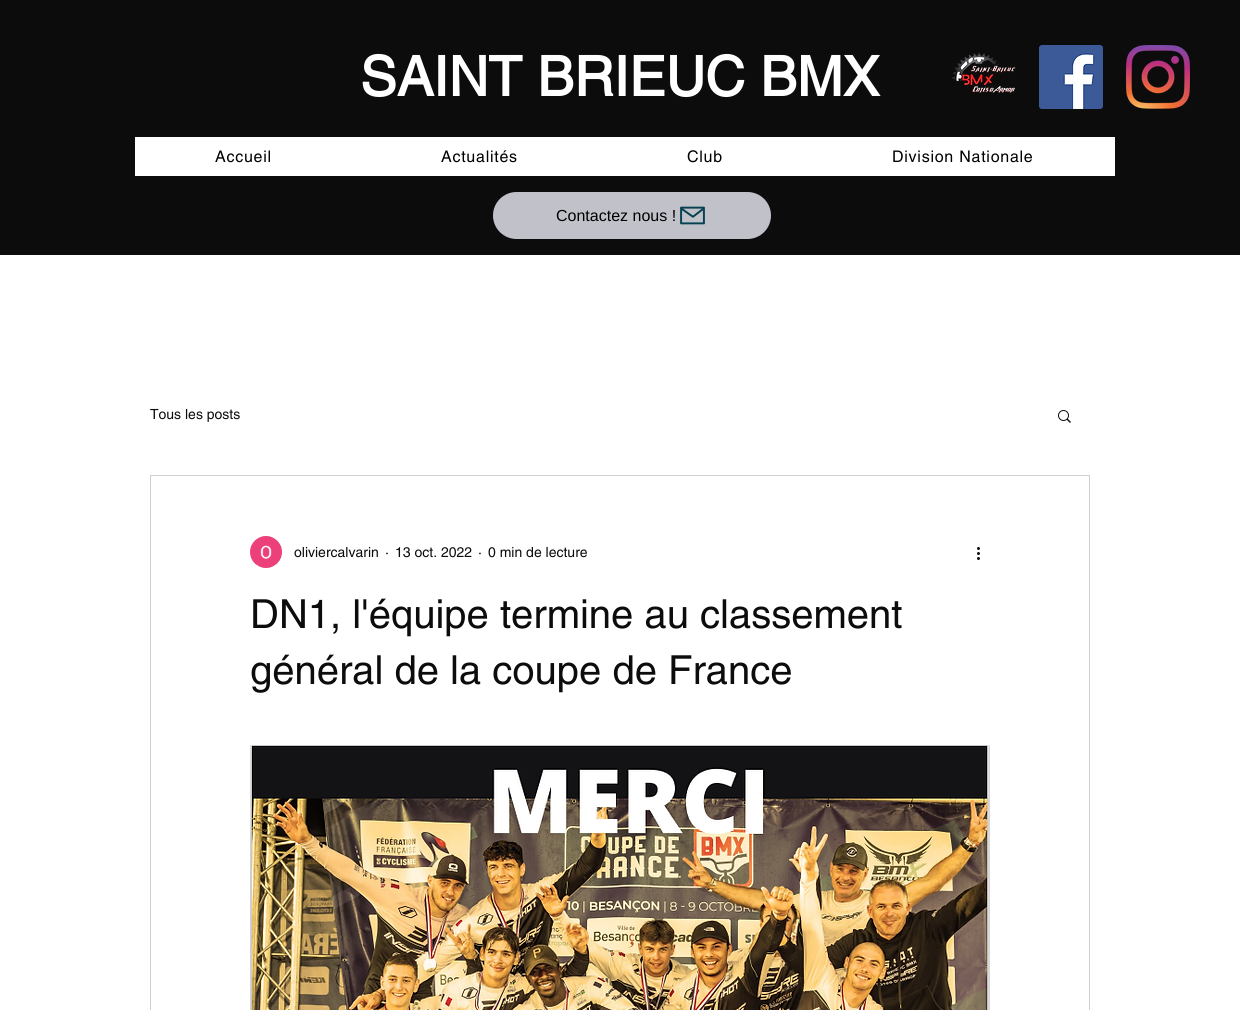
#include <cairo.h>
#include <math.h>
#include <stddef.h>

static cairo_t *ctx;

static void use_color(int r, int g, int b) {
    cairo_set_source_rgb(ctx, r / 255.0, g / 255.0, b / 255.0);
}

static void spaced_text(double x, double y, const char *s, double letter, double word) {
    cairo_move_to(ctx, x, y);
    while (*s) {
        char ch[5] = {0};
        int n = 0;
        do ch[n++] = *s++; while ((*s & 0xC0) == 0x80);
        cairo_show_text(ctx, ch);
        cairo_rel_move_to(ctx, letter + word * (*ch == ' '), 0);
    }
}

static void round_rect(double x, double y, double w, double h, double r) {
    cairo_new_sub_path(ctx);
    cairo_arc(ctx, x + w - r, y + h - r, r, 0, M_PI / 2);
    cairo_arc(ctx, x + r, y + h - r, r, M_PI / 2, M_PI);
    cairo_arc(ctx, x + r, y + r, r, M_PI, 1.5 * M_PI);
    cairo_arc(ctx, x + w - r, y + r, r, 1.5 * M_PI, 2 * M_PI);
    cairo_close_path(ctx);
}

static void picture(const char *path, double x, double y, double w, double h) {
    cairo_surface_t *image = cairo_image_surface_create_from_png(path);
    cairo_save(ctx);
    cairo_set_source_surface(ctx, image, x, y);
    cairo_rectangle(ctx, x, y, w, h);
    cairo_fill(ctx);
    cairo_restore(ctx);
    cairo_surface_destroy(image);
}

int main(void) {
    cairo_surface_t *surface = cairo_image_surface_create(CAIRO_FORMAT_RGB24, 1240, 1010);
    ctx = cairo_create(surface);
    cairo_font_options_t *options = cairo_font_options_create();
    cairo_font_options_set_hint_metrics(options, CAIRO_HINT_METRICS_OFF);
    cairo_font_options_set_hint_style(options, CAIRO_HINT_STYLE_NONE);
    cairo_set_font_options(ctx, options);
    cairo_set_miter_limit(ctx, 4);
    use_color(255, 255, 255);
    cairo_paint(ctx);
    use_color(12, 12, 13);
    cairo_rectangle(ctx, 0, 0, 1240, 255);
    cairo_fill(ctx);
    cairo_select_font_face(ctx, "helvetica", CAIRO_FONT_SLANT_NORMAL, CAIRO_FONT_WEIGHT_BOLD);
    cairo_set_font_size(ctx, 55);
    use_color(255, 255, 255);
    cairo_move_to(ctx, 360, 96);
    cairo_show_text(ctx, "SAINT BRIEUC BMX");
    picture("img1.png", 952, 53, 64, 41);
    picture("img2.png", 1039, 45, 64, 64);
    picture("img3.png", 1126, 45, 64, 64);
    cairo_rectangle(ctx, 135, 137, 980, 39);
    cairo_fill(ctx);
    cairo_select_font_face(ctx, "helvetica", CAIRO_FONT_SLANT_NORMAL, CAIRO_FONT_WEIGHT_NORMAL);
    cairo_set_font_size(ctx, 16);
    use_color(0, 0, 0);
    spaced_text(215, 162, "Accueil", 0.75, 0);
    spaced_text(441, 162, "Actualités", 0.75, 0);
    spaced_text(687, 162, "Club", 0.75, 0);
    spaced_text(892, 162, "Division Nationale", 0.75, 0);
    use_color(193, 193, 202);
    round_rect(493, 192, 278, 47, 23.5);
    cairo_fill(ctx);
    cairo_select_font_face(ctx, "Liberation Sans", CAIRO_FONT_SLANT_NORMAL, CAIRO_FONT_WEIGHT_NORMAL);
    use_color(0, 0, 0);
    cairo_move_to(ctx, 556, 221);
    cairo_show_text(ctx, "Contactez nous !");
    picture("img4.png", 680, 206, 25, 19);
    cairo_select_font_face(ctx, "helvetica", CAIRO_FONT_SLANT_NORMAL, CAIRO_FONT_WEIGHT_NORMAL);
    cairo_set_font_size(ctx, 14);
    use_color(12, 12, 13);
    cairo_move_to(ctx, 150, 419);
    cairo_show_text(ctx, "Tous les posts");
    picture("img5.png", 1058, 410, 13, 13);
    cairo_rectangle(ctx, 150.5, 475.5, 939, 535);
    use_color(208, 208, 212);
    cairo_set_line_width(ctx, 1);
    cairo_stroke(ctx);
    picture("img6.png", 250, 536, 32, 32);
    use_color(12, 12, 13);
    cairo_move_to(ctx, 294, 557);
    cairo_show_text(ctx, "oliviercalvarin");
    cairo_move_to(ctx, 385, 557);
    cairo_show_text(ctx, "·");
    cairo_move_to(ctx, 395, 557);
    cairo_show_text(ctx, "13 oct. 2022");
    cairo_move_to(ctx, 478, 557);
    cairo_show_text(ctx, "·");
    cairo_move_to(ctx, 488, 557);
    cairo_show_text(ctx, "0 min de lecture");
    picture("img7.png", 977, 547, 3, 13);
    cairo_set_font_size(ctx, 40);
    cairo_move_to(ctx, 250, 628);
    cairo_show_text(ctx, "DN1, l'équipe termine au classement");
    cairo_move_to(ctx, 250, 684);
    cairo_show_text(ctx, "général de la coupe de France");
    picture("img8.png", 250, 745, 740, 265);
    cairo_surface_write_to_png(surface, "result.png");
    cairo_font_options_destroy(options);
    cairo_destroy(ctx);
    cairo_surface_destroy(surface);
    return 0;
}
